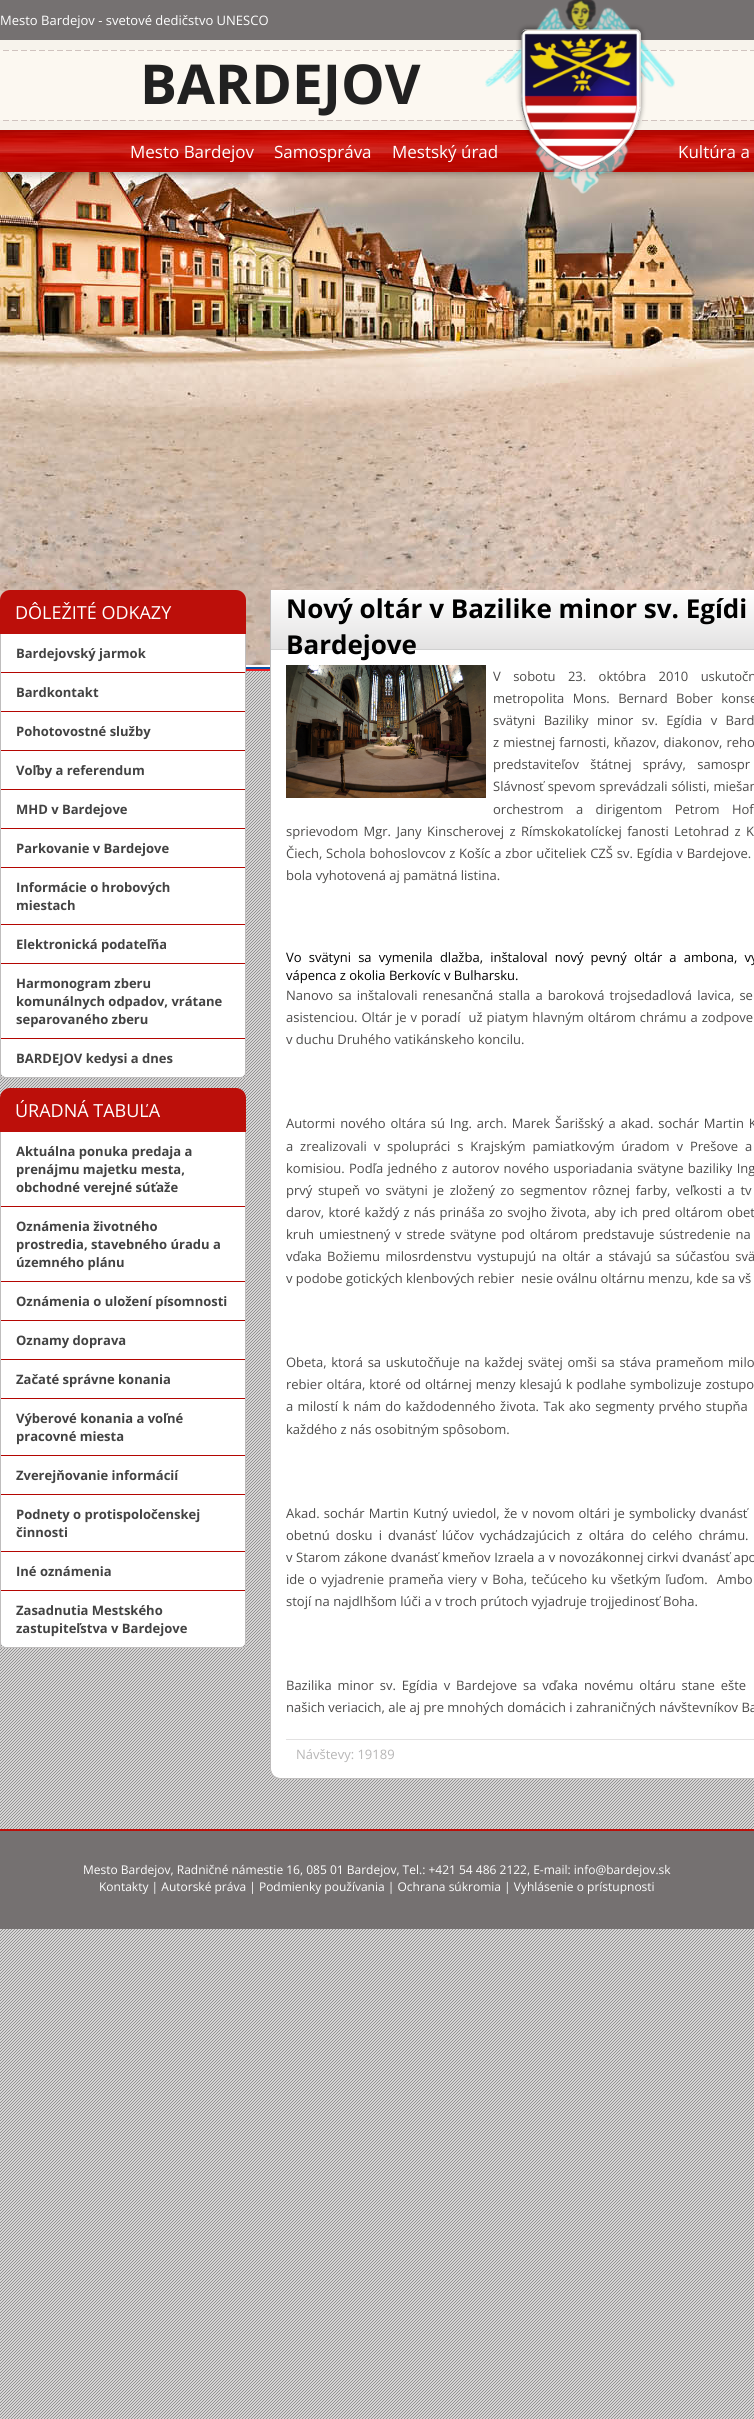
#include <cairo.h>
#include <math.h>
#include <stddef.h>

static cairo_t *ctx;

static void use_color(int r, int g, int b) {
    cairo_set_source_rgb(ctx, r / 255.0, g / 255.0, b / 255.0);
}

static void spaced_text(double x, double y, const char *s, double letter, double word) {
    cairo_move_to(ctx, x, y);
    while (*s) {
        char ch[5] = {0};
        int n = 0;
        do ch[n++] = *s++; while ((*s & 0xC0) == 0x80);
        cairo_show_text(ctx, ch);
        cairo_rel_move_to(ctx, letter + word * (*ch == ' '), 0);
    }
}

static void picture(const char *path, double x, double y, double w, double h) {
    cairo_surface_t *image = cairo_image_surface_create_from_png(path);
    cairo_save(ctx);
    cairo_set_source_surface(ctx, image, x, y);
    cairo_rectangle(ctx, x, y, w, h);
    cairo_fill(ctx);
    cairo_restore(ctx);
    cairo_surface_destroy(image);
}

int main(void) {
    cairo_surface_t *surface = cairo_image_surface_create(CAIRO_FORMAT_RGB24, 754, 2419);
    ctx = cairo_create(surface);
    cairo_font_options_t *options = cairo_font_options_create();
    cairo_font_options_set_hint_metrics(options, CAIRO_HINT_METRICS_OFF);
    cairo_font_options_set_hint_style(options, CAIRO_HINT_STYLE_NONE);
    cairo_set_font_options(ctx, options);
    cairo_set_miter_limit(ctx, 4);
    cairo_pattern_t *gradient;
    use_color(214, 212, 212);
    cairo_paint(ctx);
    picture("img1.png", 0, 671, 754, 1748);
    use_color(117, 113, 113);
    cairo_rectangle(ctx, 0, 0, 754, 40);
    cairo_fill(ctx);
    cairo_select_font_face(ctx, "Open Sans", CAIRO_FONT_SLANT_NORMAL, CAIRO_FONT_WEIGHT_NORMAL);
    cairo_set_font_size(ctx, 13);
    use_color(255, 255, 255);
    cairo_move_to(ctx, 0, 25);
    cairo_show_text(ctx, "Mesto Bardejov - svetové dedičstvo UNESCO");
    picture("img4.png", 0, 172, 754, 493);
    picture("img2.png", 0, 40, 754, 139);
    cairo_select_font_face(ctx, "Open Sans", CAIRO_FONT_SLANT_NORMAL, CAIRO_FONT_WEIGHT_BOLD);
    cairo_set_font_size(ctx, 55);
    use_color(33, 33, 33);
    cairo_move_to(ctx, 140, 104);
    cairo_show_text(ctx, "BARDEJOV");
    picture("img3.png", 485, 0, 190, 194);
    cairo_select_font_face(ctx, "Open Sans", CAIRO_FONT_SLANT_NORMAL, CAIRO_FONT_WEIGHT_NORMAL);
    cairo_set_font_size(ctx, 17);
    use_color(255, 255, 255);
    cairo_move_to(ctx, 130, 158);
    cairo_show_text(ctx, "Mesto Bardejov");
    cairo_move_to(ctx, 274, 158);
    cairo_show_text(ctx, "Samospráva");
    cairo_move_to(ctx, 392, 158);
    cairo_show_text(ctx, "Mestský úrad");
    cairo_move_to(ctx, 678, 158);
    cairo_show_text(ctx, "Kultúra a");
    use_color(188, 15, 10);
    cairo_new_path(ctx);
    cairo_move_to(ctx, 10, 590);
    cairo_line_to(ctx, 236, 590);
    cairo_curve_to(ctx, 241.5, 590, 246, 594.5, 246, 600);
    cairo_line_to(ctx, 246, 640);
    cairo_line_to(ctx, 0, 640);
    cairo_line_to(ctx, 0, 600);
    cairo_curve_to(ctx, 0, 594.5, 4.5, 590, 10, 590);
    cairo_close_path(ctx);
    cairo_fill(ctx);
    cairo_set_font_size(ctx, 18);
    use_color(255, 255, 255);
    cairo_move_to(ctx, 15, 619);
    cairo_show_text(ctx, "DÔLEŽITÉ ODKAZY");
    use_color(191, 189, 189);
    cairo_rectangle(ctx, 245, 634, 1, 444);
    cairo_fill(ctx);
    cairo_rectangle(ctx, 0, 1077, 246, 1);
    cairo_fill(ctx);
    cairo_rectangle(ctx, 0, 634, 1, 444);
    cairo_fill(ctx);
    use_color(180, 6, 1);
    cairo_rectangle(ctx, 1, 672, 244, 1);
    cairo_fill(ctx);
    use_color(255, 255, 255);
    cairo_rectangle(ctx, 1, 634, 244, 38);
    cairo_fill(ctx);
    cairo_select_font_face(ctx, "Open Sans", CAIRO_FONT_SLANT_NORMAL, CAIRO_FONT_WEIGHT_BOLD);
    cairo_set_font_size(ctx, 13);
    use_color(67, 67, 67);
    cairo_move_to(ctx, 16, 658);
    cairo_show_text(ctx, "Bardejovský jarmok");
    use_color(180, 6, 1);
    cairo_rectangle(ctx, 1, 711, 244, 1);
    cairo_fill(ctx);
    use_color(255, 255, 255);
    cairo_rectangle(ctx, 1, 673, 244, 38);
    cairo_fill(ctx);
    use_color(67, 67, 67);
    cairo_move_to(ctx, 16, 697);
    cairo_show_text(ctx, "Bardkontakt");
    use_color(180, 6, 1);
    cairo_rectangle(ctx, 1, 750, 244, 1);
    cairo_fill(ctx);
    use_color(255, 255, 255);
    cairo_rectangle(ctx, 1, 712, 244, 38);
    cairo_fill(ctx);
    use_color(67, 67, 67);
    cairo_move_to(ctx, 16, 736);
    cairo_show_text(ctx, "Pohotovostné služby");
    use_color(180, 6, 1);
    cairo_rectangle(ctx, 1, 789, 244, 1);
    cairo_fill(ctx);
    use_color(255, 255, 255);
    cairo_rectangle(ctx, 1, 751, 244, 38);
    cairo_fill(ctx);
    use_color(67, 67, 67);
    cairo_move_to(ctx, 16, 775);
    cairo_show_text(ctx, "Voľby a referendum");
    use_color(180, 6, 1);
    cairo_rectangle(ctx, 1, 828, 244, 1);
    cairo_fill(ctx);
    use_color(255, 255, 255);
    cairo_rectangle(ctx, 1, 790, 244, 38);
    cairo_fill(ctx);
    use_color(67, 67, 67);
    cairo_move_to(ctx, 16, 814);
    cairo_show_text(ctx, "MHD v Bardejove");
    use_color(180, 6, 1);
    cairo_rectangle(ctx, 1, 867, 244, 1);
    cairo_fill(ctx);
    use_color(255, 255, 255);
    cairo_rectangle(ctx, 1, 829, 244, 38);
    cairo_fill(ctx);
    use_color(67, 67, 67);
    cairo_move_to(ctx, 16, 853);
    cairo_show_text(ctx, "Parkovanie v Bardejove");
    use_color(180, 6, 1);
    cairo_rectangle(ctx, 1, 924, 244, 1);
    cairo_fill(ctx);
    use_color(255, 255, 255);
    cairo_rectangle(ctx, 1, 868, 244, 56);
    cairo_fill(ctx);
    use_color(67, 67, 67);
    cairo_move_to(ctx, 16, 892);
    cairo_show_text(ctx, "Informácie o hrobových");
    cairo_move_to(ctx, 16, 910);
    cairo_show_text(ctx, "miestach");
    use_color(180, 6, 1);
    cairo_rectangle(ctx, 1, 963, 244, 1);
    cairo_fill(ctx);
    use_color(255, 255, 255);
    cairo_rectangle(ctx, 1, 925, 244, 38);
    cairo_fill(ctx);
    use_color(67, 67, 67);
    cairo_move_to(ctx, 16, 949);
    cairo_show_text(ctx, "Elektronická podateľňa");
    use_color(180, 6, 1);
    cairo_rectangle(ctx, 1, 1038, 244, 1);
    cairo_fill(ctx);
    use_color(255, 255, 255);
    cairo_rectangle(ctx, 1, 964, 244, 74);
    cairo_fill(ctx);
    use_color(67, 67, 67);
    cairo_move_to(ctx, 16, 988);
    cairo_show_text(ctx, "Harmonogram zberu");
    cairo_move_to(ctx, 16, 1006);
    cairo_show_text(ctx, "komunálnych odpadov, vrátane");
    cairo_move_to(ctx, 16, 1024);
    cairo_show_text(ctx, "separovaného zberu");
    use_color(255, 255, 255);
    cairo_new_path(ctx);
    cairo_move_to(ctx, 1, 1039);
    cairo_line_to(ctx, 245, 1039);
    cairo_line_to(ctx, 245, 1072);
    cairo_curve_to(ctx, 245, 1075, 243, 1077, 240, 1077);
    cairo_line_to(ctx, 6, 1077);
    cairo_curve_to(ctx, 3, 1077, 1, 1075, 1, 1072);
    cairo_close_path(ctx);
    cairo_fill(ctx);
    use_color(67, 67, 67);
    cairo_move_to(ctx, 16, 1063);
    cairo_show_text(ctx, "BARDEJOV kedysi a dnes");
    use_color(188, 15, 10);
    cairo_new_path(ctx);
    cairo_move_to(ctx, 10, 1088);
    cairo_line_to(ctx, 236, 1088);
    cairo_curve_to(ctx, 241.5, 1088, 246, 1092.5, 246, 1098);
    cairo_line_to(ctx, 246, 1138);
    cairo_line_to(ctx, 0, 1138);
    cairo_line_to(ctx, 0, 1098);
    cairo_curve_to(ctx, 0, 1092.5, 4.5, 1088, 10, 1088);
    cairo_close_path(ctx);
    cairo_fill(ctx);
    cairo_select_font_face(ctx, "Open Sans", CAIRO_FONT_SLANT_NORMAL, CAIRO_FONT_WEIGHT_NORMAL);
    cairo_set_font_size(ctx, 18);
    use_color(255, 255, 255);
    cairo_move_to(ctx, 15, 1117);
    cairo_show_text(ctx, "ÚRADNÁ TABUĽA");
    use_color(191, 189, 189);
    cairo_rectangle(ctx, 245, 1132, 1, 516);
    cairo_fill(ctx);
    cairo_rectangle(ctx, 0, 1647, 246, 1);
    cairo_fill(ctx);
    cairo_rectangle(ctx, 0, 1132, 1, 516);
    cairo_fill(ctx);
    use_color(180, 6, 1);
    cairo_rectangle(ctx, 1, 1206, 244, 1);
    cairo_fill(ctx);
    use_color(255, 255, 255);
    cairo_rectangle(ctx, 1, 1132, 244, 74);
    cairo_fill(ctx);
    cairo_select_font_face(ctx, "Open Sans", CAIRO_FONT_SLANT_NORMAL, CAIRO_FONT_WEIGHT_BOLD);
    cairo_set_font_size(ctx, 13);
    use_color(67, 67, 67);
    cairo_move_to(ctx, 16, 1156);
    cairo_show_text(ctx, "Aktuálna ponuka predaja a");
    cairo_move_to(ctx, 16, 1174);
    cairo_show_text(ctx, "prenájmu majetku mesta,");
    cairo_move_to(ctx, 16, 1192);
    cairo_show_text(ctx, "obchodné verejné súťaže");
    use_color(180, 6, 1);
    cairo_rectangle(ctx, 1, 1281, 244, 1);
    cairo_fill(ctx);
    use_color(255, 255, 255);
    cairo_rectangle(ctx, 1, 1207, 244, 74);
    cairo_fill(ctx);
    use_color(67, 67, 67);
    cairo_move_to(ctx, 16, 1231);
    cairo_show_text(ctx, "Oznámenia životného");
    cairo_move_to(ctx, 16, 1249);
    cairo_show_text(ctx, "prostredia, stavebného úradu a");
    cairo_move_to(ctx, 16, 1267);
    cairo_show_text(ctx, "územného plánu");
    use_color(180, 6, 1);
    cairo_rectangle(ctx, 1, 1320, 244, 1);
    cairo_fill(ctx);
    use_color(255, 255, 255);
    cairo_rectangle(ctx, 1, 1282, 244, 38);
    cairo_fill(ctx);
    use_color(67, 67, 67);
    cairo_move_to(ctx, 16, 1306);
    cairo_show_text(ctx, "Oznámenia o uložení písomnosti");
    use_color(180, 6, 1);
    cairo_rectangle(ctx, 1, 1359, 244, 1);
    cairo_fill(ctx);
    use_color(255, 255, 255);
    cairo_rectangle(ctx, 1, 1321, 244, 38);
    cairo_fill(ctx);
    use_color(67, 67, 67);
    cairo_move_to(ctx, 16, 1345);
    cairo_show_text(ctx, "Oznamy doprava");
    use_color(180, 6, 1);
    cairo_rectangle(ctx, 1, 1398, 244, 1);
    cairo_fill(ctx);
    use_color(255, 255, 255);
    cairo_rectangle(ctx, 1, 1360, 244, 38);
    cairo_fill(ctx);
    use_color(67, 67, 67);
    cairo_move_to(ctx, 16, 1384);
    cairo_show_text(ctx, "Začaté správne konania");
    use_color(180, 6, 1);
    cairo_rectangle(ctx, 1, 1455, 244, 1);
    cairo_fill(ctx);
    use_color(255, 255, 255);
    cairo_rectangle(ctx, 1, 1399, 244, 56);
    cairo_fill(ctx);
    use_color(67, 67, 67);
    cairo_move_to(ctx, 16, 1423);
    cairo_show_text(ctx, "Výberové konania a voľné");
    cairo_move_to(ctx, 16, 1441);
    cairo_show_text(ctx, "pracovné miesta");
    use_color(180, 6, 1);
    cairo_rectangle(ctx, 1, 1494, 244, 1);
    cairo_fill(ctx);
    use_color(255, 255, 255);
    cairo_rectangle(ctx, 1, 1456, 244, 38);
    cairo_fill(ctx);
    use_color(67, 67, 67);
    cairo_move_to(ctx, 16, 1480);
    cairo_show_text(ctx, "Zverejňovanie informácií");
    use_color(180, 6, 1);
    cairo_rectangle(ctx, 1, 1551, 244, 1);
    cairo_fill(ctx);
    use_color(255, 255, 255);
    cairo_rectangle(ctx, 1, 1495, 244, 56);
    cairo_fill(ctx);
    use_color(67, 67, 67);
    cairo_move_to(ctx, 16, 1519);
    cairo_show_text(ctx, "Podnety o protispoločenskej");
    cairo_move_to(ctx, 16, 1537);
    cairo_show_text(ctx, "činnosti");
    use_color(180, 6, 1);
    cairo_rectangle(ctx, 1, 1590, 244, 1);
    cairo_fill(ctx);
    use_color(255, 255, 255);
    cairo_rectangle(ctx, 1, 1552, 244, 38);
    cairo_fill(ctx);
    use_color(67, 67, 67);
    cairo_move_to(ctx, 16, 1576);
    cairo_show_text(ctx, "Iné oznámenia");
    use_color(255, 255, 255);
    cairo_new_path(ctx);
    cairo_move_to(ctx, 1, 1591);
    cairo_line_to(ctx, 245, 1591);
    cairo_line_to(ctx, 245, 1642);
    cairo_curve_to(ctx, 245, 1645, 243, 1647, 240, 1647);
    cairo_line_to(ctx, 6, 1647);
    cairo_curve_to(ctx, 3, 1647, 1, 1645, 1, 1642);
    cairo_close_path(ctx);
    cairo_fill(ctx);
    use_color(67, 67, 67);
    cairo_move_to(ctx, 16, 1615);
    cairo_show_text(ctx, "Zasadnutia Mestského");
    cairo_move_to(ctx, 16, 1633);
    cairo_show_text(ctx, "zastupiteľstva v Bardejove");
    use_color(255, 255, 255);
    cairo_new_path(ctx);
    cairo_move_to(ctx, 271, 590);
    cairo_line_to(ctx, 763, 590);
    cairo_line_to(ctx, 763, 1769);
    cairo_curve_to(ctx, 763, 1774, 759, 1778, 754, 1778);
    cairo_line_to(ctx, 280, 1778);
    cairo_curve_to(ctx, 275, 1778, 271, 1774, 271, 1769);
    cairo_close_path(ctx);
    cairo_fill(ctx);
    use_color(191, 189, 189);
    cairo_set_fill_rule(ctx, CAIRO_FILL_RULE_EVEN_ODD);
    cairo_new_path(ctx);
    cairo_move_to(ctx, 270, 590);
    cairo_line_to(ctx, 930, 590);
    cairo_line_to(ctx, 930, 1769);
    cairo_curve_to(ctx, 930, 1775, 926, 1779, 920, 1779);
    cairo_line_to(ctx, 280, 1779);
    cairo_curve_to(ctx, 274, 1779, 270, 1775, 270, 1769);
    cairo_close_path(ctx);
    cairo_move_to(ctx, 271, 590);
    cairo_line_to(ctx, 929, 590);
    cairo_line_to(ctx, 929, 1769);
    cairo_curve_to(ctx, 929, 1774, 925, 1778, 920, 1778);
    cairo_line_to(ctx, 280, 1778);
    cairo_curve_to(ctx, 275, 1778, 271, 1774, 271, 1769);
    cairo_close_path(ctx);
    cairo_fill(ctx);
    gradient = cairo_pattern_create_linear(600, 590, 600, 649);
    cairo_pattern_add_color_stop_rgba(gradient, 0, 1, 1, 1, 1);
    cairo_pattern_add_color_stop_rgba(gradient, 1, 0.89, 0.886, 0.886, 1);
    cairo_set_source(ctx, gradient);
    cairo_pattern_destroy(gradient);
    cairo_new_path(ctx);
    cairo_move_to(ctx, 276, 590);
    cairo_line_to(ctx, 754, 590);
    cairo_curve_to(ctx, 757, 590, 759, 592, 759, 595);
    cairo_line_to(ctx, 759, 649);
    cairo_line_to(ctx, 271, 649);
    cairo_line_to(ctx, 271, 595);
    cairo_curve_to(ctx, 271, 592, 273, 590, 276, 590);
    cairo_close_path(ctx);
    cairo_fill(ctx);
    use_color(208, 208, 208);
    cairo_rectangle(ctx, 271, 649, 483, 1);
    cairo_fill(ctx);
    cairo_set_font_size(ctx, 26);
    use_color(0, 0, 0);
    cairo_move_to(ctx, 286, 618);
    cairo_show_text(ctx, "Nový oltár v Bazilike minor sv. Egídi");
    cairo_move_to(ctx, 286, 654);
    cairo_show_text(ctx, "Bardejove");
    picture("img5.png", 286, 665, 200, 133);
    cairo_select_font_face(ctx, "Open Sans", CAIRO_FONT_SLANT_NORMAL, CAIRO_FONT_WEIGHT_NORMAL);
    cairo_set_font_size(ctx, 13);
    use_color(76, 75, 74);
    spaced_text(493, 681, "V sobotu 23. októbra 2010 uskutočn", 0, 9);
    spaced_text(493, 703, "metropolita Mons. Bernard Bober konse", 0, 5);
    spaced_text(493, 725, "svätyni Baziliky minor sv. Egídia v Bard", 0, 5);
    spaced_text(493, 747, "z miestnej farnosti, kňazov, diakonov, reho", 0, 0.75);
    spaced_text(493, 769, "predstaviteľov štátnej správy, samospr", 0, 8);
    spaced_text(493, 791, "Slávnosť spevom sprevádzali sólisti, miešan", 0, 0.5);
    spaced_text(493, 814, "orchestrom a dirigentom Petrom Hof", 0, 9);
    spaced_text(286, 836, "sprievodom Mgr. Jany Kinscherovej z Rímskokatolíckej fanosti Letohrad z K", 0, 2);
    spaced_text(286, 858, "Čiech, Schola bohoslovcov z Košíc a zbor učiteliek CZŠ sv. Egídia v Bardejove.", 0, 0.4);
    cairo_move_to(ctx, 286, 880);
    cairo_show_text(ctx, "bola vyhotovená aj pamätná listina.");
    use_color(0, 0, 0);
    spaced_text(286, 962, "Vo svätyni sa vymenila dlažba, inštaloval nový pevný oltár a ambona, vy", 0, 3.75);
    cairo_move_to(ctx, 286, 980);
    cairo_show_text(ctx, "vápenca z okolia Berkovíc v Bulharsku.");
    use_color(76, 75, 74);
    spaced_text(286, 1000, "Nanovo sa inštalovali renesančná stalla a baroková trojsedadlová lavica, se", 0, 1.75);
    spaced_text(286, 1022, "asistenciou. Oltár je v poradí  už piatym hlavným oltárom chrámu a zodpove", 0, 0.6);
    cairo_move_to(ctx, 286, 1044);
    cairo_show_text(ctx, "v duchu Druhého vatikánskeho koncilu.");
    spaced_text(286, 1128, "Autormi nového oltára sú Ing. arch. Marek Šarišský a akad. sochár Martin K", 0, 1.5);
    spaced_text(286, 1151, "a zrealizovali v spolupráci s Krajským pamiatkovým úradom v Prešove a", 0, 3.5);
    spaced_text(286, 1173, "komisiou. Podľa jedného z autorov nového usporiadania svätyne baziliky Ing", 0, 1);
    spaced_text(286, 1195, "prvý stupeň vo svätyni je zložený zo segmentov rôznej farby, veľkosti a tv", 0, 2.25);
    spaced_text(286, 1217, "darov, ktoré každý z nás prináša zo svojho života, aby ich pred oltárom obet", 0, 0.9);
    spaced_text(286, 1239, "kruh umiestnený v strede svätyne pod oltárom predstavuje sústredenie na", 0, 1.5);
    spaced_text(286, 1261, "vďaka Božiemu milosrdenstvu vystupujú na oltár a stávajú sa súčasťou svä", 0, 2);
    cairo_move_to(ctx, 286, 1283);
    cairo_show_text(ctx, "v podobe gotických klenbových rebier  nesie oválnu oltárnu menzu, kde sa vš");
    spaced_text(286, 1367, "Obeta, ktorá sa uskutočňuje na každej svätej omši sa stáva prameňom milo", 0, 1.25);
    spaced_text(286, 1389, "rebier oltára, ktoré od oltárnej menzy klesajú k podlahe symbolizuje zostupo", 0, 0.6);
    spaced_text(286, 1411, "a milostí k nám do každodenného života. Tak ako segmenty prvého stupňa", 0, 1);
    cairo_move_to(ctx, 286, 1434);
    cairo_show_text(ctx, "každého z nás osobitným spôsobom.");
    spaced_text(286, 1518, "Akad. sochár Martin Kutný uviedol, že v novom oltári je symbolicky dvanásť", 0, 0.8);
    spaced_text(286, 1540, "obetnú dosku i dvanásť lúčov vychádzajúcich z oltára do celého chrámu.", 0, 2.75);
    spaced_text(286, 1562, "v Starom zákone dvanásť kmeňov Izraela a v novozákonnej cirkvi dvanásť apo", 0, 0.25);
    spaced_text(286, 1584, "ide o vyjadrenie prameňa viery v Boha, tečúceho ku všetkým ľuďom.  Ambo", 0, 1.1);
    cairo_move_to(ctx, 286, 1606);
    cairo_show_text(ctx, "stojí na najdlhšom lúči a v troch prútoch vyjadruje trojjedinosť Boha.");
    spaced_text(286, 1690, "Bazilika minor sv. Egídia v Bardejove sa vďaka novému oltáru stane ešte", 0, 2.5);
    cairo_move_to(ctx, 286, 1712);
    cairo_show_text(ctx, "našich veriacich, ale aj pre mnohých domácich i zahraničných návštevníkov Ba");
    use_color(226, 225, 225);
    cairo_rectangle(ctx, 286, 1739, 468, 1);
    cairo_fill(ctx);
    use_color(183, 182, 182);
    cairo_move_to(ctx, 296, 1759);
    cairo_show_text(ctx, "Návštevy: 19189");
    picture("img6.png", 246, 665, 24, 6);
    use_color(117, 113, 113);
    cairo_rectangle(ctx, 0, 1831, 754, 98);
    cairo_fill(ctx);
    use_color(188, 15, 10);
    cairo_rectangle(ctx, 0, 1829, 754, 2);
    cairo_fill(ctx);
    cairo_set_font_size(ctx, 12);
    use_color(255, 255, 255);
    cairo_move_to(ctx, 83, 1874);
    cairo_show_text(ctx, "Mesto Bardejov, Radničné námestie 16, 085 01 Bardejov, Tel.: +421 54 486 2122, E-mail: info@bardejov.sk");
    cairo_move_to(ctx, 99, 1891);
    cairo_show_text(ctx, "Kontakty | Autorské práva | Podmienky používania | Ochrana súkromia | Vyhlásenie o prístupnosti");
    cairo_surface_write_to_png(surface, "result.png");
    cairo_font_options_destroy(options);
    cairo_destroy(ctx);
    cairo_surface_destroy(surface);
    return 0;
}
